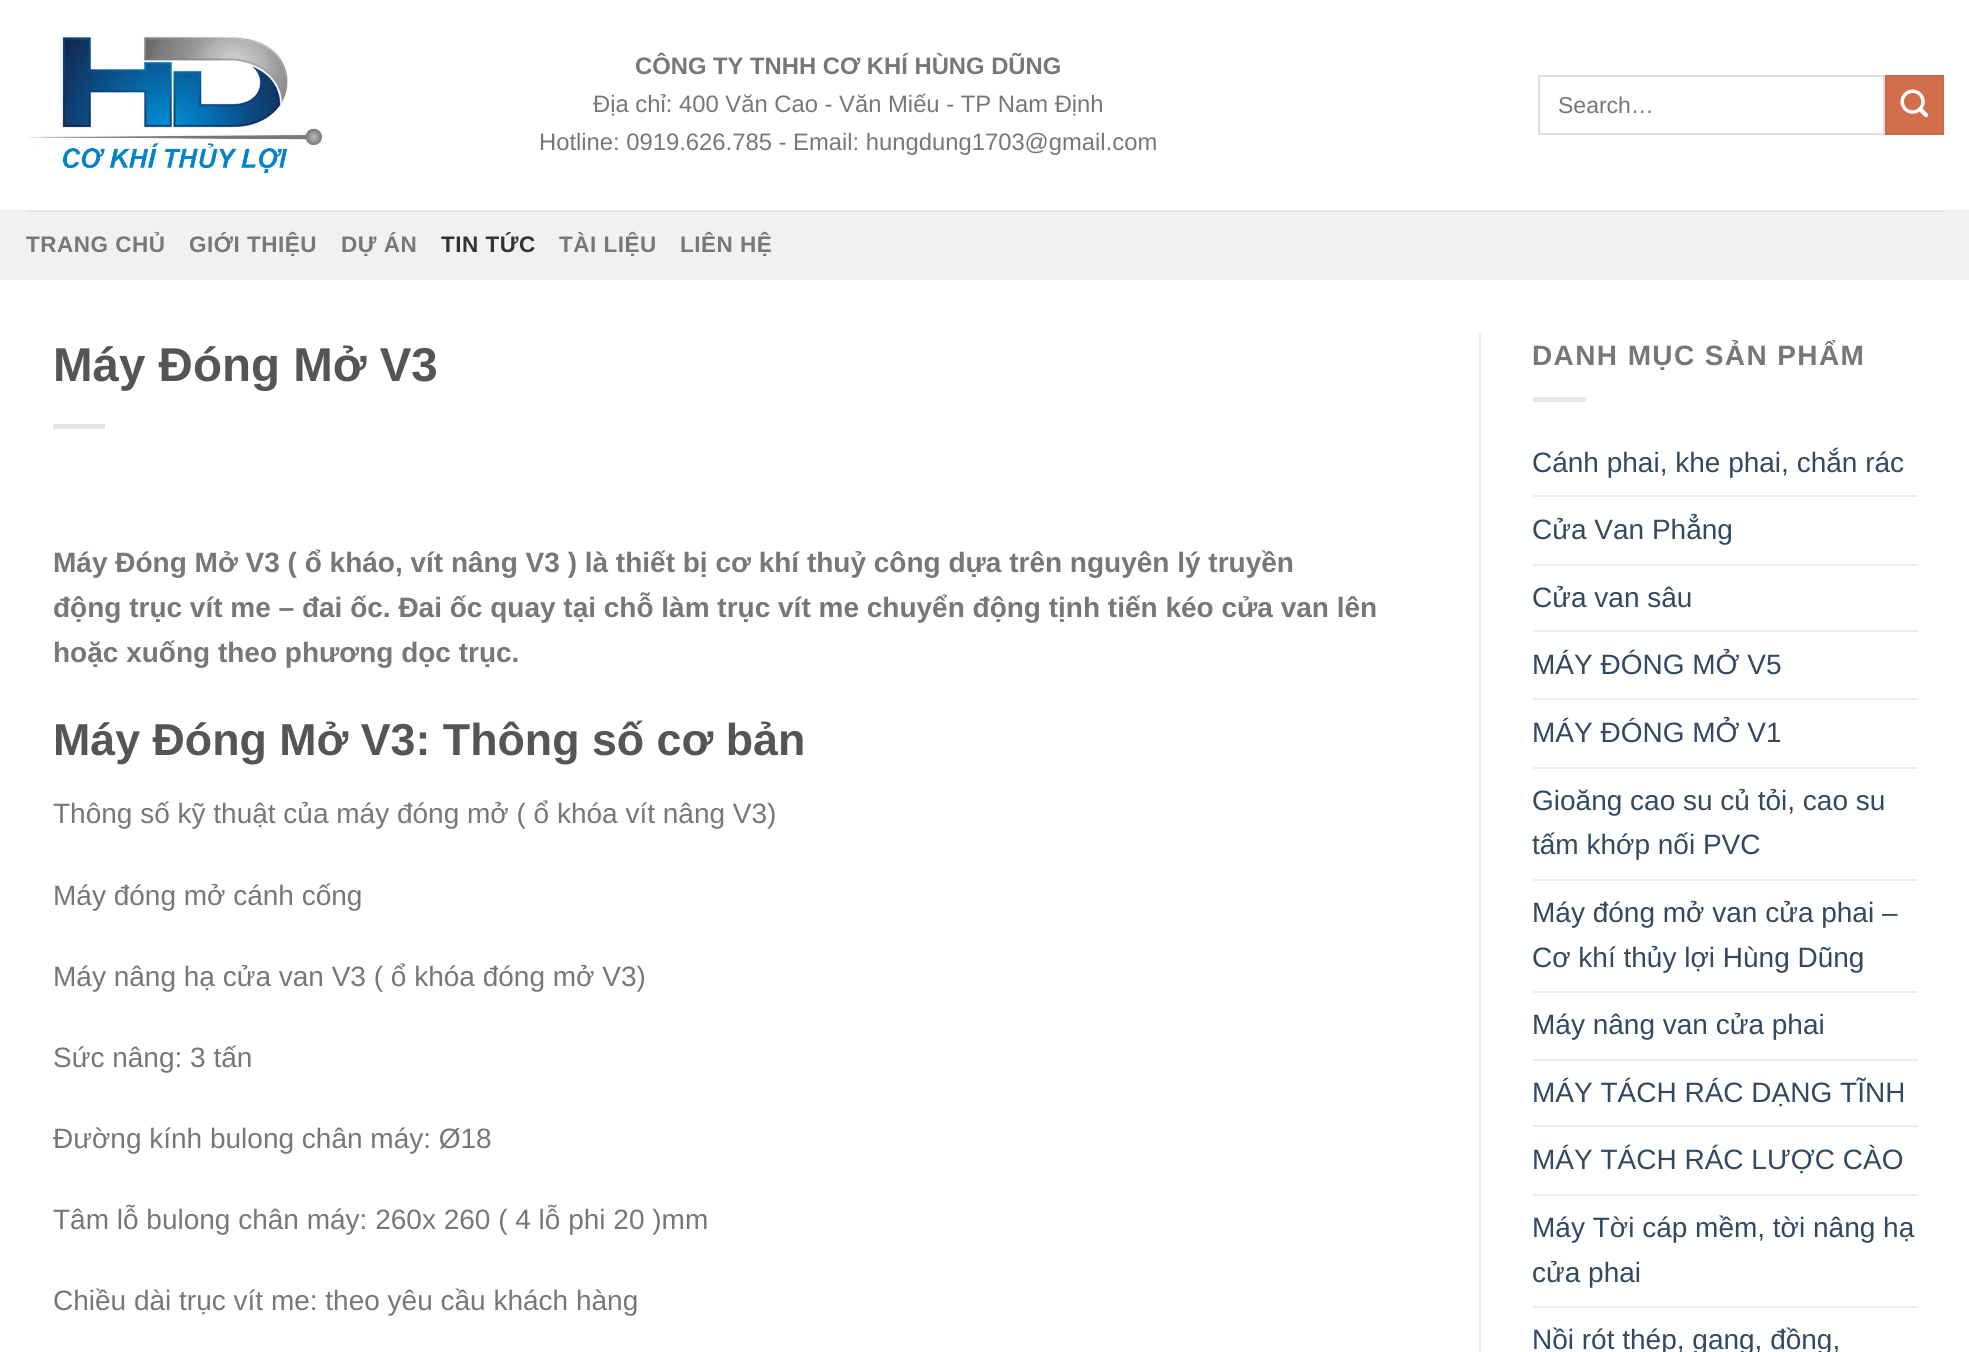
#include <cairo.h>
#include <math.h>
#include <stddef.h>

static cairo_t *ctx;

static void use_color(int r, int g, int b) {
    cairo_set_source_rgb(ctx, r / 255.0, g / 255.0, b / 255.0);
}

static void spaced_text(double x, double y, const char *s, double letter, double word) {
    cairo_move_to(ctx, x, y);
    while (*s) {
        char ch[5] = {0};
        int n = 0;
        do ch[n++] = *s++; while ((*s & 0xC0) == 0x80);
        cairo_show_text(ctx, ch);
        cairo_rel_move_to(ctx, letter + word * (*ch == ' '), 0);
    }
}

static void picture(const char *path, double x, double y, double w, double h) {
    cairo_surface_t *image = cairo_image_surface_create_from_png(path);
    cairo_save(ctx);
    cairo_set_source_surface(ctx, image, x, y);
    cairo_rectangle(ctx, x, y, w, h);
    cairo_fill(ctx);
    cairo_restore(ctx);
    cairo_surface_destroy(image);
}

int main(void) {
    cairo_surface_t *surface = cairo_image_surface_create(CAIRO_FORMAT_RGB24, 1969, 1352);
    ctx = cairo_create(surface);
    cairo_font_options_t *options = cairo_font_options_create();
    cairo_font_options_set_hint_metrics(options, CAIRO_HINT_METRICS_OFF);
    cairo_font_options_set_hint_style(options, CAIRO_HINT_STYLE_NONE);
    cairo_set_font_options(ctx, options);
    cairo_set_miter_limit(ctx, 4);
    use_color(255, 255, 255);
    cairo_paint(ctx);
    picture("img1.png", 26, 35, 298, 139);
    cairo_select_font_face(ctx, "Liberation Sans", CAIRO_FONT_SLANT_NORMAL, CAIRO_FONT_WEIGHT_BOLD);
    cairo_set_font_size(ctx, 23.8);
    use_color(119, 119, 119);
    cairo_move_to(ctx, 635, 74);
    cairo_show_text(ctx, "CÔNG TY TNHH CƠ KHÍ HÙNG DŨNG");
    cairo_select_font_face(ctx, "Liberation Sans", CAIRO_FONT_SLANT_NORMAL, CAIRO_FONT_WEIGHT_NORMAL);
    cairo_move_to(ctx, 593, 112);
    cairo_show_text(ctx, "Địa chỉ: 400 Văn Cao - Văn Miếu - TP Nam Định");
    cairo_move_to(ctx, 539, 150);
    cairo_show_text(ctx, "Hotline: 0919.626.785 - Email: hungdung1703@gmail.com");
    cairo_rectangle(ctx, 1539, 76, 345, 58);
    use_color(221, 221, 221);
    cairo_stroke(ctx);
    cairo_set_font_size(ctx, 23);
    use_color(119, 119, 119);
    cairo_move_to(ctx, 1558, 113);
    cairo_show_text(ctx, "Search…");
    use_color(210, 110, 75);
    cairo_rectangle(ctx, 1886, 76, 57, 58);
    cairo_fill_preserve(ctx);
    use_color(200, 105, 71);
    cairo_stroke(ctx);
    picture("img2.png", 1900, 89, 29, 29);
    use_color(241, 241, 241);
    cairo_rectangle(ctx, 0, 210, 1969, 70);
    cairo_fill(ctx);
    use_color(229, 229, 229);
    cairo_rectangle(ctx, 26, 210, 1918, 2);
    cairo_fill(ctx);
    cairo_select_font_face(ctx, "Liberation Sans", CAIRO_FONT_SLANT_NORMAL, CAIRO_FONT_WEIGHT_BOLD);
    cairo_set_font_size(ctx, 22.5);
    use_color(119, 119, 119);
    spaced_text(26, 252, "TRANG CHỦ", 0.5, 0);
    spaced_text(189, 252, "GIỚI THIỆU", 0.5, 0);
    spaced_text(341, 252, "DỰ ÁN", 0.5, 0);
    use_color(51, 51, 51);
    spaced_text(441, 252, "TIN TỨC", 0.5, 0);
    use_color(119, 119, 119);
    spaced_text(559, 252, "TÀI LIỆU", 0.5, 0);
    spaced_text(680, 252, "LIÊN HỆ", 0.5, 0);
    cairo_set_font_size(ctx, 47.5);
    use_color(85, 85, 85);
    cairo_move_to(ctx, 53, 381);
    cairo_show_text(ctx, "Máy Đóng Mở V3");
    use_color(230, 230, 230);
    cairo_rectangle(ctx, 53, 424, 52, 5);
    cairo_fill(ctx);
    cairo_set_font_size(ctx, 28);
    use_color(119, 119, 119);
    cairo_move_to(ctx, 53, 572);
    cairo_show_text(ctx, "Máy Đóng Mở V3 ( ổ kháo, vít nâng V3 ) là thiết bị cơ khí thuỷ công dựa trên nguyên lý truyền");
    cairo_move_to(ctx, 53, 617);
    cairo_show_text(ctx, "động trục vít me – đai ốc. Đai ốc quay tại chỗ làm trục vít me chuyển động tịnh tiến kéo cửa van lên");
    cairo_move_to(ctx, 53, 662);
    cairo_show_text(ctx, "hoặc xuống theo phương dọc trục.");
    cairo_set_font_size(ctx, 44.75);
    use_color(85, 85, 85);
    cairo_move_to(ctx, 53, 755);
    cairo_show_text(ctx, "Máy Đóng Mở V3: Thông số cơ bản");
    cairo_select_font_face(ctx, "Liberation Sans", CAIRO_FONT_SLANT_NORMAL, CAIRO_FONT_WEIGHT_NORMAL);
    cairo_set_font_size(ctx, 28);
    use_color(119, 119, 119);
    cairo_move_to(ctx, 53, 823);
    cairo_show_text(ctx, "Thông số kỹ thuật của máy đóng mở ( ổ khóa vít nâng V3)");
    cairo_move_to(ctx, 53, 905);
    cairo_show_text(ctx, "Máy đóng mở cánh cống");
    cairo_move_to(ctx, 53, 986);
    cairo_show_text(ctx, "Máy nâng hạ cửa van V3 ( ổ khóa đóng mở V3)");
    cairo_move_to(ctx, 53, 1067);
    cairo_show_text(ctx, "Sức nâng: 3 tấn");
    cairo_move_to(ctx, 53, 1148);
    cairo_show_text(ctx, "Đường kính bulong chân máy: Ø18");
    cairo_move_to(ctx, 53, 1229);
    cairo_show_text(ctx, "Tâm lỗ bulong chân máy: 260x 260 ( 4 lỗ phi 20 )mm");
    cairo_move_to(ctx, 53, 1310);
    cairo_show_text(ctx, "Chiều dài trục vít me: theo yêu cầu khách hàng");
    use_color(236, 236, 236);
    cairo_rectangle(ctx, 1479, 333, 2, 1019);
    cairo_fill(ctx);
    cairo_select_font_face(ctx, "Liberation Sans", CAIRO_FONT_SLANT_NORMAL, CAIRO_FONT_WEIGHT_BOLD);
    use_color(119, 119, 119);
    spaced_text(1532, 365, "DANH MỤC SẢN PHẨM", 1.4, 0);
    use_color(230, 230, 230);
    cairo_rectangle(ctx, 1533, 397, 53, 5);
    cairo_fill(ctx);
    cairo_select_font_face(ctx, "Liberation Sans", CAIRO_FONT_SLANT_NORMAL, CAIRO_FONT_WEIGHT_NORMAL);
    use_color(51, 72, 98);
    cairo_move_to(ctx, 1532, 472);
    cairo_show_text(ctx, "Cánh phai, khe phai, chắn rác");
    use_color(236, 236, 236);
    cairo_rectangle(ctx, 1533, 495, 385, 2);
    cairo_fill(ctx);
    use_color(51, 72, 98);
    cairo_move_to(ctx, 1532, 539);
    cairo_show_text(ctx, "Cửa Van Phẳng");
    use_color(236, 236, 236);
    cairo_rectangle(ctx, 1533, 564, 385, 2);
    cairo_fill(ctx);
    use_color(51, 72, 98);
    cairo_move_to(ctx, 1532, 607);
    cairo_show_text(ctx, "Cửa van sâu");
    use_color(236, 236, 236);
    cairo_rectangle(ctx, 1533, 630, 385, 2);
    cairo_fill(ctx);
    use_color(51, 72, 98);
    cairo_move_to(ctx, 1532, 674);
    cairo_show_text(ctx, "MÁY ĐÓNG MỞ V5");
    use_color(236, 236, 236);
    cairo_rectangle(ctx, 1533, 698, 385, 2);
    cairo_fill(ctx);
    use_color(51, 72, 98);
    cairo_move_to(ctx, 1532, 742);
    cairo_show_text(ctx, "MÁY ĐÓNG MỞ V1");
    use_color(236, 236, 236);
    cairo_rectangle(ctx, 1533, 767, 385, 2);
    cairo_fill(ctx);
    use_color(51, 72, 98);
    cairo_move_to(ctx, 1532, 810);
    cairo_show_text(ctx, "Gioăng cao su củ tỏi, cao su");
    cairo_move_to(ctx, 1532, 854);
    cairo_show_text(ctx, "tấm khớp nối PVC");
    use_color(236, 236, 236);
    cairo_rectangle(ctx, 1533, 879, 385, 2);
    cairo_fill(ctx);
    use_color(51, 72, 98);
    cairo_move_to(ctx, 1532, 922);
    cairo_show_text(ctx, "Máy đóng mở van cửa phai –");
    cairo_move_to(ctx, 1532, 967);
    cairo_show_text(ctx, "Cơ khí thủy lợi Hùng Dũng");
    use_color(236, 236, 236);
    cairo_rectangle(ctx, 1533, 991, 385, 2);
    cairo_fill(ctx);
    use_color(51, 72, 98);
    cairo_move_to(ctx, 1532, 1034);
    cairo_show_text(ctx, "Máy nâng van cửa phai");
    use_color(236, 236, 236);
    cairo_rectangle(ctx, 1533, 1059, 385, 2);
    cairo_fill(ctx);
    use_color(51, 72, 98);
    cairo_move_to(ctx, 1532, 1102);
    cairo_show_text(ctx, "MÁY TÁCH RÁC DẠNG TĨNH");
    use_color(236, 236, 236);
    cairo_rectangle(ctx, 1533, 1125, 385, 2);
    cairo_fill(ctx);
    use_color(51, 72, 98);
    cairo_move_to(ctx, 1532, 1169);
    cairo_show_text(ctx, "MÁY TÁCH RÁC LƯỢC CÀO");
    use_color(236, 236, 236);
    cairo_rectangle(ctx, 1533, 1194, 385, 2);
    cairo_fill(ctx);
    use_color(51, 72, 98);
    cairo_move_to(ctx, 1532, 1237);
    cairo_show_text(ctx, "Máy Tời cáp mềm, tời nâng hạ");
    cairo_move_to(ctx, 1532, 1282);
    cairo_show_text(ctx, "cửa phai");
    use_color(236, 236, 236);
    cairo_rectangle(ctx, 1533, 1306, 385, 2);
    cairo_fill(ctx);
    use_color(51, 72, 98);
    cairo_move_to(ctx, 1532, 1349);
    cairo_show_text(ctx, "Nồi rót thép, gang, đồng,");
    cairo_surface_write_to_png(surface, "result.png");
    cairo_font_options_destroy(options);
    cairo_destroy(ctx);
    cairo_surface_destroy(surface);
    return 0;
}
